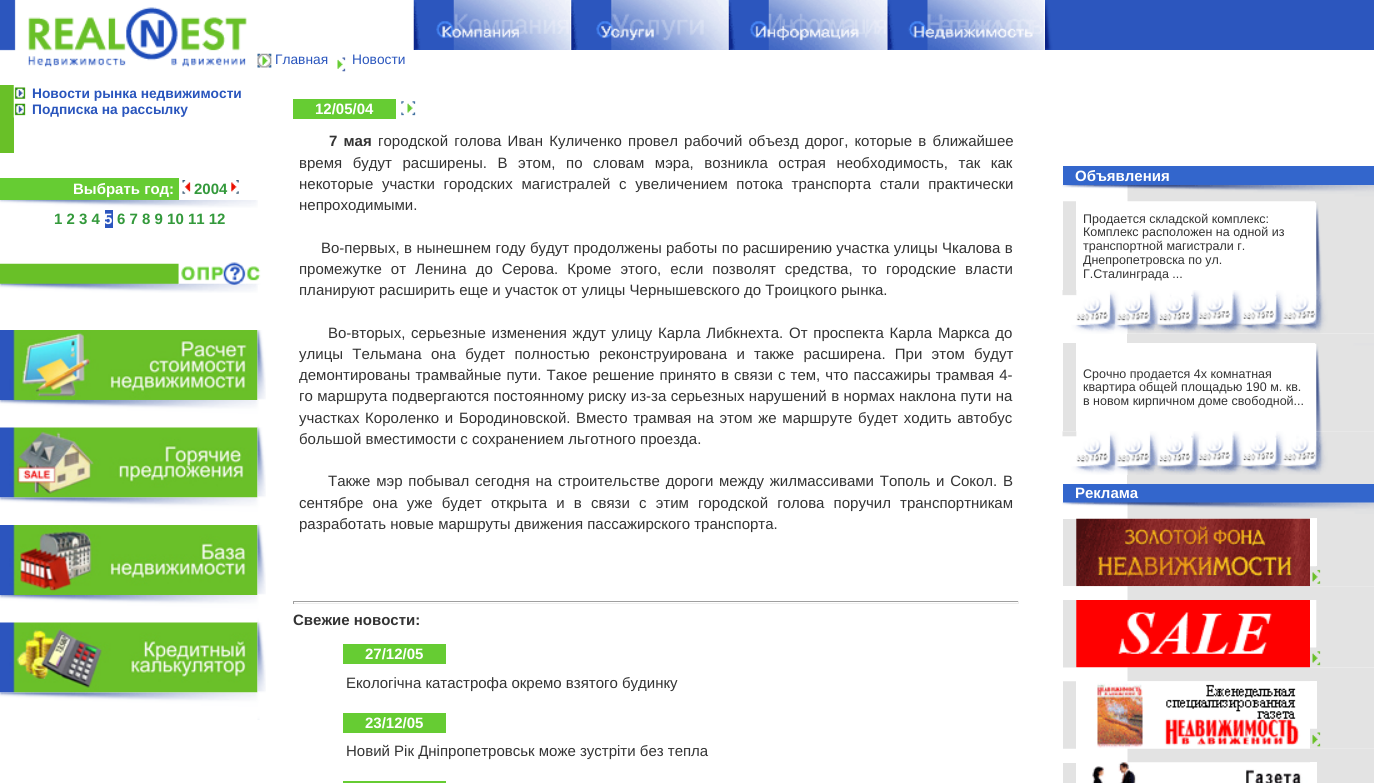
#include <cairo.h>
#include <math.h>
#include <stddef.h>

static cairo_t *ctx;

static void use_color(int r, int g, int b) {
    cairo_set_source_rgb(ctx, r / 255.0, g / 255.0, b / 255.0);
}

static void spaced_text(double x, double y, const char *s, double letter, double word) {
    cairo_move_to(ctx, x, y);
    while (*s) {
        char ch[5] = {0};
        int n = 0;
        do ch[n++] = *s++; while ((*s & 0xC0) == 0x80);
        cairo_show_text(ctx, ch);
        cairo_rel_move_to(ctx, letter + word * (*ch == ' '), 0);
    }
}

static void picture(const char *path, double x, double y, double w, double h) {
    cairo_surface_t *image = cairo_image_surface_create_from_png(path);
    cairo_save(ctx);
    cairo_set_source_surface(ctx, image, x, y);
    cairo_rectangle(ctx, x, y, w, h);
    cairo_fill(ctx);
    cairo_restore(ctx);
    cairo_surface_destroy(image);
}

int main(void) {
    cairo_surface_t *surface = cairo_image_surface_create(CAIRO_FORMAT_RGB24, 1374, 783);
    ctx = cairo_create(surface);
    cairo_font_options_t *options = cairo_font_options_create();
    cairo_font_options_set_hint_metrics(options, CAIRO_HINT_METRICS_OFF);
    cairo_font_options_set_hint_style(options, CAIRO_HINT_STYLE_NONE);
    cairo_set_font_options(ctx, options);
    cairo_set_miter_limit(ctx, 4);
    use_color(255, 255, 255);
    cairo_paint(ctx);
    picture("img1.png", 0, 0, 247, 67);
    picture("img2.png", 413, 0, 159, 50);
    picture("img3.png", 571, 0, 158, 50);
    picture("img4.png", 728, 0, 160, 50);
    picture("img5.png", 887, 0, 158, 50);
    picture("img6.png", 1045, 0, 11, 50);
    use_color(44, 86, 190);
    cairo_rectangle(ctx, 1056, 0, 318, 50);
    cairo_fill(ctx);
    picture("img7.png", 257, 53, 15, 15);
    cairo_select_font_face(ctx, "Liberation Sans", CAIRO_FONT_SLANT_NORMAL, CAIRO_FONT_WEIGHT_NORMAL);
    cairo_set_font_size(ctx, 13.75);
    use_color(41, 85, 189);
    cairo_move_to(ctx, 275, 64);
    cairo_show_text(ctx, "Главная");
    picture("img8.png", 337, 57, 9, 15);
    cairo_move_to(ctx, 352, 64);
    cairo_show_text(ctx, "Новости");
    use_color(105, 192, 40);
    cairo_rectangle(ctx, 0, 85, 14, 68);
    cairo_fill(ctx);
    picture("img9.png", 13, 85, 13, 17);
    cairo_select_font_face(ctx, "Liberation Sans", CAIRO_FONT_SLANT_NORMAL, CAIRO_FONT_WEIGHT_BOLD);
    use_color(41, 85, 189);
    cairo_move_to(ctx, 32, 98);
    cairo_show_text(ctx, "Новости рынка недвижимости");
    picture("img10.png", 13, 101, 13, 17);
    cairo_move_to(ctx, 32, 114);
    cairo_show_text(ctx, "Подписка на рассылку");
    use_color(102, 204, 51);
    cairo_rectangle(ctx, 0, 178, 179, 22);
    cairo_fill(ctx);
    cairo_set_font_size(ctx, 15);
    use_color(255, 255, 255);
    cairo_move_to(ctx, 73, 194);
    cairo_show_text(ctx, "Выбрать год:");
    picture("img11.png", 182, 180, 12, 14);
    use_color(51, 153, 59);
    cairo_move_to(ctx, 194, 194);
    cairo_show_text(ctx, "2004");
    picture("img12.png", 227, 180, 12, 14);
    picture("img13.png", 0, 200, 258, 8);
    cairo_move_to(ctx, 54, 224);
    cairo_show_text(ctx, "1 2 3 4");
    use_color(44, 86, 190);
    cairo_rectangle(ctx, 105, 210, 8, 18);
    cairo_fill(ctx);
    use_color(255, 255, 255);
    cairo_move_to(ctx, 104, 224);
    cairo_show_text(ctx, "5");
    use_color(51, 153, 59);
    cairo_move_to(ctx, 117, 224);
    cairo_show_text(ctx, "6 7 8 9 10 11 12");
    picture("img14.png", 0, 263, 179, 22);
    picture("img15.png", 178, 262, 83, 23);
    picture("img13.png", 0, 285, 258, 8);
    picture("img16.png", 0, 330, 258, 70);
    picture("img17.png", 257, 330, 9, 70);
    picture("img18.png", 0, 400, 259, 28);
    picture("img19.png", 0, 427, 258, 71);
    picture("img20.png", 257, 427, 9, 71);
    picture("img21.png", 0, 497, 260, 28);
    picture("img22.png", 0, 525, 258, 70);
    picture("img17.png", 257, 525, 9, 70);
    picture("img18.png", 0, 595, 259, 28);
    picture("img23.png", 0, 622, 258, 71);
    picture("img20.png", 257, 622, 9, 71);
    picture("img24.png", 0, 692, 260, 28);
    use_color(102, 204, 51);
    cairo_rectangle(ctx, 293, 99, 103, 20);
    cairo_fill(ctx);
    use_color(255, 255, 255);
    cairo_move_to(ctx, 315, 114);
    cairo_show_text(ctx, "12/05/04");
    picture("img25.png", 401, 101, 15, 15);
    use_color(51, 51, 51);
    spaced_text(329, 146, "7 мая", 0, 2);
    cairo_select_font_face(ctx, "Liberation Sans", CAIRO_FONT_SLANT_NORMAL, CAIRO_FONT_WEIGHT_NORMAL);
    spaced_text(378, 146, "городской голова Иван Куличенко провел рабочий объезд дорог, которые в ближайшее", 0, 2);
    spaced_text(299, 168, "время будут расширены. В этом, по словам мэра, возникла острая необходимость, так как", 0, 6.4);
    spaced_text(299, 189, "некоторые участки городских магистралей с увеличением потока транспорта стали практически", 0, 4.5);
    cairo_move_to(ctx, 299, 210);
    cairo_show_text(ctx, "непроходимыми.");
    spaced_text(321, 253, "Во-первых, в нынешнем году будут продолжены работы по расширению участка улицы Чкалова в", 0, 0.25);
    spaced_text(299, 274, "промежутке от Ленина до Серова. Кроме этого, если позволят средства, то городские власти", 0, 4.9);
    cairo_move_to(ctx, 299, 295);
    cairo_show_text(ctx, "планируют расширить еще и участок от улицы Чернышевского до Троицкого рынка.");
    spaced_text(328, 338, "Во-вторых, серьезные изменения ждут улицу Карла Либкнехта. От проспекта Карла Маркса до", 0, 1.6);
    spaced_text(299, 359, "улицы Тельмана она будет полностью реконструирована и также расширена. При этом будут", 0, 5.1);
    spaced_text(299, 380, "демонтированы трамвайные пути. Такое решение принято в связи с тем, что пассажиры трамвая 4-", 0, 0.9);
    spaced_text(299, 401, "го маршрута подвергаются постоянному риску из-за серьезных нарушений в нормах наклона пути на", 0, 0.25);
    spaced_text(299, 423, "участках Короленко и Бородиновской. Вместо трамвая на этом же маршруте будет ходить автобус", 0, 1.5);
    cairo_move_to(ctx, 299, 444);
    cairo_show_text(ctx, "большой вместимости с сохранением льготного проезда.");
    spaced_text(328, 486, "Также мэр побывал сегодня на строительстве дороги между жилмассивами Тополь и Сокол. В", 0, 1.6);
    spaced_text(299, 508, "сентябре она уже будет открыта и в связи с этим городской голова поручил транспортникам", 0, 5);
    cairo_move_to(ctx, 299, 529);
    cairo_show_text(ctx, "разработать новые маршруты движения пассажирского транспорта.");
    use_color(159, 159, 159);
    cairo_rectangle(ctx, 293, 601, 726, 1);
    cairo_fill(ctx);
    use_color(238, 238, 238);
    cairo_rectangle(ctx, 1018, 601, 1, 3);
    cairo_fill(ctx);
    cairo_rectangle(ctx, 293, 603, 726, 1);
    cairo_fill(ctx);
    use_color(159, 159, 159);
    cairo_rectangle(ctx, 293, 601, 1, 3);
    cairo_fill(ctx);
    cairo_select_font_face(ctx, "Liberation Sans", CAIRO_FONT_SLANT_NORMAL, CAIRO_FONT_WEIGHT_BOLD);
    use_color(51, 51, 51);
    cairo_move_to(ctx, 293, 625);
    cairo_show_text(ctx, "Свежие новости:");
    use_color(102, 204, 51);
    cairo_rectangle(ctx, 343, 644, 103, 20);
    cairo_fill(ctx);
    use_color(255, 255, 255);
    cairo_move_to(ctx, 365, 659);
    cairo_show_text(ctx, "27/12/05");
    cairo_select_font_face(ctx, "Liberation Sans", CAIRO_FONT_SLANT_NORMAL, CAIRO_FONT_WEIGHT_NORMAL);
    use_color(51, 51, 51);
    cairo_move_to(ctx, 346, 688);
    cairo_show_text(ctx, "Екологічна катастрофа окремо взятого будинку");
    use_color(102, 204, 51);
    cairo_rectangle(ctx, 343, 713, 103, 20);
    cairo_fill(ctx);
    cairo_select_font_face(ctx, "Liberation Sans", CAIRO_FONT_SLANT_NORMAL, CAIRO_FONT_WEIGHT_BOLD);
    use_color(255, 255, 255);
    cairo_move_to(ctx, 365, 728);
    cairo_show_text(ctx, "23/12/05");
    cairo_select_font_face(ctx, "Liberation Sans", CAIRO_FONT_SLANT_NORMAL, CAIRO_FONT_WEIGHT_NORMAL);
    use_color(51, 51, 51);
    cairo_move_to(ctx, 346, 756);
    cairo_show_text(ctx, "Новий Рік Дніпропетровськ може зустріти без тепла");
    use_color(102, 204, 51);
    cairo_rectangle(ctx, 343, 781, 103, 2);
    cairo_fill(ctx);
    use_color(51, 102, 204);
    cairo_rectangle(ctx, 1063, 166, 311, 19);
    cairo_fill(ctx);
    cairo_select_font_face(ctx, "Liberation Sans", CAIRO_FONT_SLANT_NORMAL, CAIRO_FONT_WEIGHT_BOLD);
    use_color(255, 255, 255);
    cairo_move_to(ctx, 1075, 181);
    cairo_show_text(ctx, "Объявления");
    use_color(227, 227, 227);
    cairo_rectangle(ctx, 1063, 201, 13, 89);
    cairo_fill(ctx);
    cairo_rectangle(ctx, 1315, 201, 59, 89);
    cairo_fill(ctx);
    picture("img26.png", 1062, 185, 312, 17);
    cairo_select_font_face(ctx, "Liberation Sans", CAIRO_FONT_SLANT_NORMAL, CAIRO_FONT_WEIGHT_NORMAL);
    cairo_set_font_size(ctx, 12.5);
    use_color(51, 51, 51);
    cairo_move_to(ctx, 1083, 223);
    cairo_show_text(ctx, "Продается складской комплекс:");
    cairo_move_to(ctx, 1083, 236);
    cairo_show_text(ctx, "Комплекс расположен на одной из");
    cairo_move_to(ctx, 1083, 250);
    cairo_show_text(ctx, "транспортной магистрали г.");
    cairo_move_to(ctx, 1083, 264);
    cairo_show_text(ctx, "Днепропетровска по ул.");
    cairo_move_to(ctx, 1083, 278);
    cairo_show_text(ctx, "Г.Сталинграда ...");
    picture("img27.png", 1315, 202, 7, 88);
    picture("img28.png", 1062, 290, 312, 44);
    use_color(227, 227, 227);
    cairo_rectangle(ctx, 1127, 334, 247, 9);
    cairo_fill(ctx);
    cairo_rectangle(ctx, 1063, 343, 13, 88);
    cairo_fill(ctx);
    use_color(51, 51, 51);
    cairo_move_to(ctx, 1083, 378);
    cairo_show_text(ctx, "Срочно продается 4х комнатная");
    cairo_move_to(ctx, 1083, 391);
    cairo_show_text(ctx, "квартира общей площадью 190 м. кв.");
    cairo_move_to(ctx, 1083, 405);
    cairo_show_text(ctx, "в новом кирпичном доме свободной...");
    picture("img29.png", 1315, 343, 59, 89);
    picture("img30.png", 1062, 431, 312, 44);
    use_color(227, 227, 227);
    cairo_rectangle(ctx, 1127, 475, 247, 9);
    cairo_fill(ctx);
    use_color(51, 102, 204);
    cairo_rectangle(ctx, 1063, 484, 311, 19);
    cairo_fill(ctx);
    cairo_select_font_face(ctx, "Liberation Sans", CAIRO_FONT_SLANT_NORMAL, CAIRO_FONT_WEIGHT_BOLD);
    cairo_set_font_size(ctx, 15);
    use_color(255, 255, 255);
    cairo_move_to(ctx, 1075, 498);
    cairo_show_text(ctx, "Реклама");
    use_color(227, 227, 227);
    cairo_rectangle(ctx, 1316, 518, 58, 49);
    cairo_fill(ctx);
    picture("img31.png", 1062, 502, 312, 17);
    cairo_rectangle(ctx, 1063, 519, 13, 67);
    cairo_fill(ctx);
    picture("img32.png", 1076, 518, 234, 69);
    use_color(255, 255, 255);
    cairo_rectangle(ctx, 1310, 518, 7, 48);
    cairo_fill(ctx);
    picture("img33.png", 1310, 566, 64, 21);
    picture("img34.png", 1076, 586, 298, 14);
    use_color(227, 227, 227);
    cairo_rectangle(ctx, 1063, 600, 13, 68);
    cairo_fill(ctx);
    picture("img35.png", 1076, 600, 234, 68);
    cairo_rectangle(ctx, 1316, 600, 58, 48);
    cairo_fill(ctx);
    picture("img36.png", 1316, 600, 1, 48);
    picture("img37.png", 1310, 647, 64, 21);
    cairo_rectangle(ctx, 1063, 681, 13, 68);
    cairo_fill(ctx);
    cairo_rectangle(ctx, 1317, 681, 57, 48);
    cairo_fill(ctx);
    picture("img38.png", 1063, 667, 311, 15);
    picture("img39.png", 1096, 681, 214, 67);
    use_color(255, 255, 255);
    cairo_rectangle(ctx, 1310, 681, 7, 1);
    cairo_fill(ctx);
    picture("img40.png", 1310, 728, 64, 21);
    use_color(227, 227, 227);
    cairo_rectangle(ctx, 1317, 762, 57, 21);
    cairo_fill(ctx);
    picture("img41.png", 1063, 748, 311, 15);
    cairo_rectangle(ctx, 1063, 763, 13, 20);
    cairo_fill(ctx);
    picture("img42.png", 1092, 762, 218, 21);
    use_color(255, 255, 255);
    cairo_rectangle(ctx, 1310, 762, 7, 1);
    cairo_fill(ctx);
    cairo_surface_write_to_png(surface, "result.png");
    cairo_font_options_destroy(options);
    cairo_destroy(ctx);
    cairo_surface_destroy(surface);
    return 0;
}
